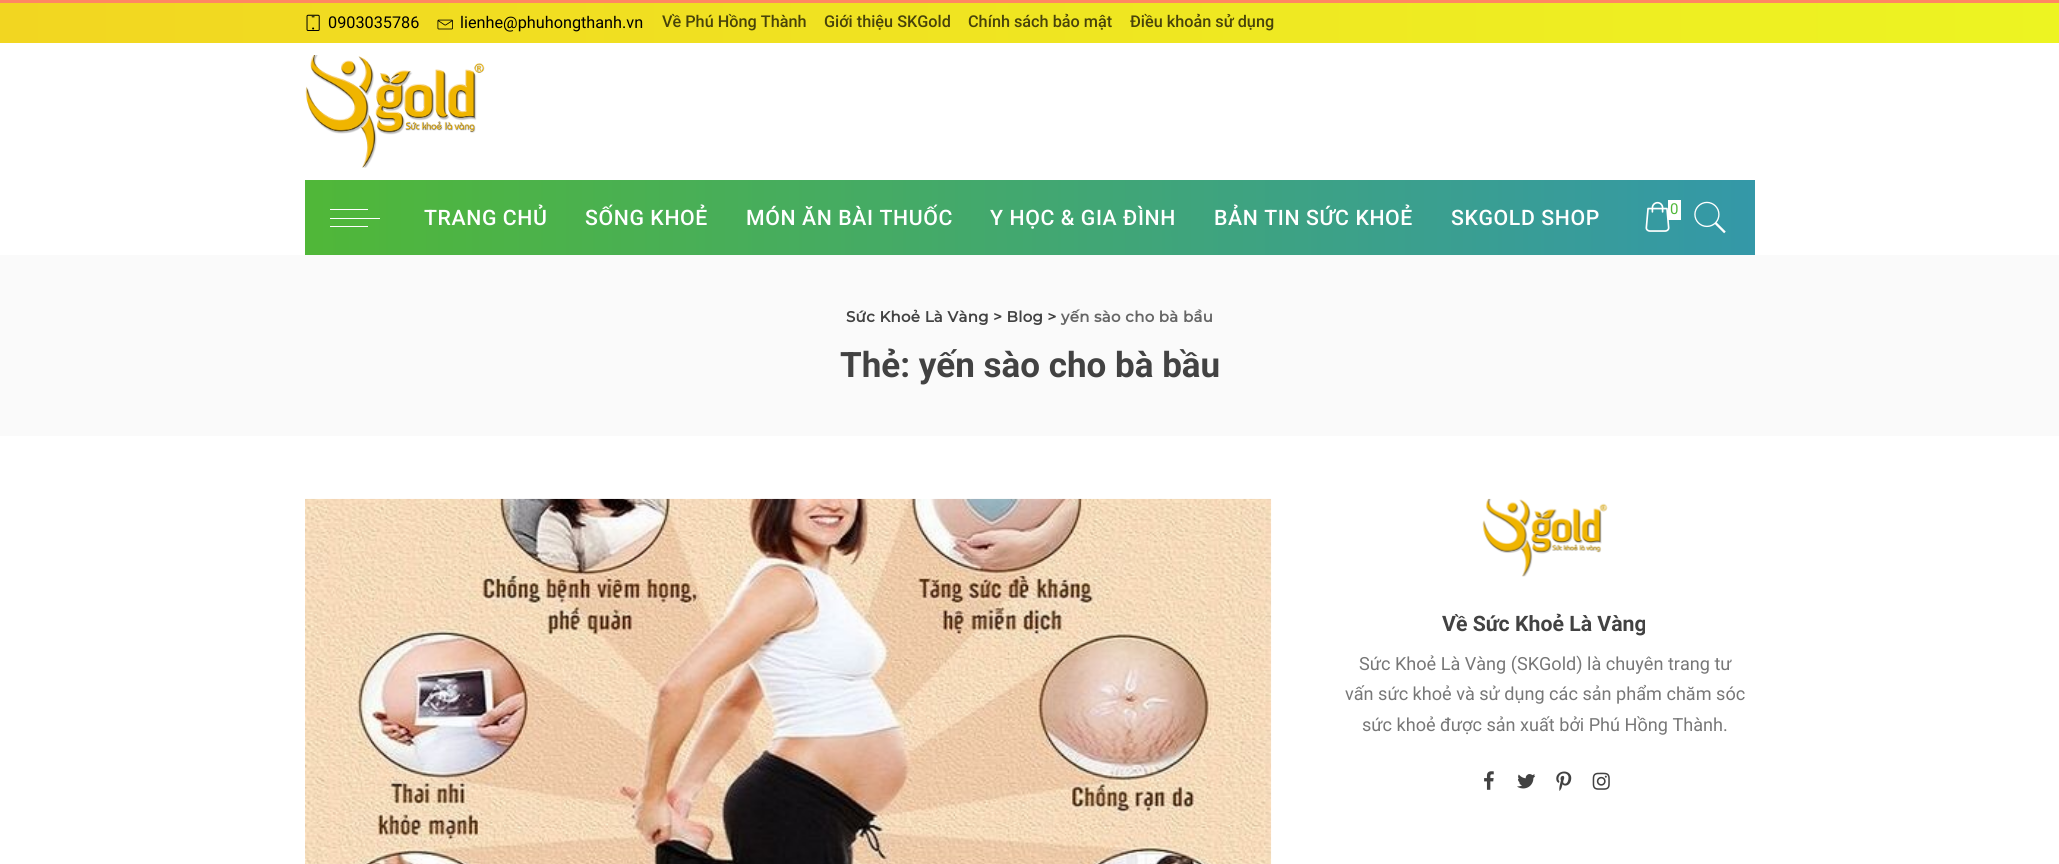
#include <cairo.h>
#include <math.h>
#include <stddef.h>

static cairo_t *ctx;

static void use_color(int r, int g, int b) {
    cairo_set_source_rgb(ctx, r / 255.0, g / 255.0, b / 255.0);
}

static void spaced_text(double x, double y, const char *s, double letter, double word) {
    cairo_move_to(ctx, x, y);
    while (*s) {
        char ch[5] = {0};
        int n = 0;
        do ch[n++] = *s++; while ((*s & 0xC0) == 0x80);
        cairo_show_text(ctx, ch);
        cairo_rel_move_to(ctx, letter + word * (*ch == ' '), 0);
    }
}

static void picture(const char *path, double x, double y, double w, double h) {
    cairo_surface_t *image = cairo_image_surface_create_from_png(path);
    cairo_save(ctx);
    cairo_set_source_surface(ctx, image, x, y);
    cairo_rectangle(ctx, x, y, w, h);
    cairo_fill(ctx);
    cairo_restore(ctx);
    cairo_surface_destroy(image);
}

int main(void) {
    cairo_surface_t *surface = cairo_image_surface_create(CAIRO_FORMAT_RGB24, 2059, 864);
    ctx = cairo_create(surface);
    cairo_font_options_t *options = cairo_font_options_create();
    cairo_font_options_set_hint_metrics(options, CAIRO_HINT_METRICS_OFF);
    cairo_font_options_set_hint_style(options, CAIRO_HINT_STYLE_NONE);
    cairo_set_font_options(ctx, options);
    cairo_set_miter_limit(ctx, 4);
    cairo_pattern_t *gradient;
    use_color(255, 255, 255);
    cairo_paint(ctx);
    use_color(255, 135, 99);
    cairo_rectangle(ctx, 0, 0, 2059, 3);
    cairo_fill(ctx);
    gradient = cairo_pattern_create_linear(0, 23, 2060, 22);
    cairo_pattern_add_color_stop_rgba(gradient, 0, 0.949, 0.839, 0.129, 1);
    cairo_pattern_add_color_stop_rgba(gradient, 1, 0.929, 0.957, 0.133, 1);
    cairo_set_source(ctx, gradient);
    cairo_pattern_destroy(gradient);
    cairo_rectangle(ctx, 0, 3, 2059, 40);
    cairo_fill(ctx);
    picture("img1.png", 306, 14, 14, 17);
    cairo_select_font_face(ctx, "Roboto", CAIRO_FONT_SLANT_NORMAL, CAIRO_FONT_WEIGHT_NORMAL);
    cairo_set_font_size(ctx, 16.25);
    use_color(0, 0, 0);
    cairo_move_to(ctx, 328, 28);
    cairo_show_text(ctx, "0903035786");
    picture("img2.png", 437, 19, 16, 11);
    cairo_move_to(ctx, 460, 28);
    cairo_show_text(ctx, "lienhe@phuhongthanh.vn");
    cairo_select_font_face(ctx, "Roboto Medium", CAIRO_FONT_SLANT_NORMAL, CAIRO_FONT_WEIGHT_NORMAL);
    use_color(72, 67, 10);
    cairo_move_to(ctx, 662, 27);
    cairo_show_text(ctx, "Về Phú Hồng Thành");
    cairo_move_to(ctx, 824, 27);
    cairo_show_text(ctx, "Giới thiệu SKGold");
    cairo_move_to(ctx, 968, 27);
    cairo_show_text(ctx, "Chính sách bảo mật");
    cairo_move_to(ctx, 1130, 27);
    cairo_show_text(ctx, "Điều khoản sử dụng");
    picture("img3.png", 305, 55, 180, 113);
    gradient = cairo_pattern_create_linear(305, 218, 1755, 217);
    cairo_pattern_add_color_stop_rgba(gradient, 0, 0.314, 0.718, 0.22, 1);
    cairo_pattern_add_color_stop_rgba(gradient, 1, 0.204, 0.596, 0.659, 1);
    cairo_set_source(ctx, gradient);
    cairo_pattern_destroy(gradient);
    cairo_rectangle(ctx, 305, 180, 1450, 75);
    cairo_fill(ctx);
    use_color(255, 255, 255);
    cairo_rectangle(ctx, 330, 218, 50, 1);
    cairo_fill(ctx);
    cairo_rectangle(ctx, 330, 209, 38, 1);
    cairo_fill(ctx);
    cairo_rectangle(ctx, 330, 226, 38, 1);
    cairo_fill(ctx);
    cairo_set_font_size(ctx, 21.25);
    spaced_text(424, 225, "TRANG CHỦ", 0.6, 0);
    spaced_text(585, 225, "SỐNG KHOẺ", 0.6, 0);
    spaced_text(746, 225, "MÓN ĂN BÀI THUỐC", 0.6, 0);
    spaced_text(990, 225, "Y HỌC & GIA ĐÌNH", 0.6, 0);
    spaced_text(1214, 225, "BẢN TIN SỨC KHOẺ", 0.6, 0);
    spaced_text(1451, 225, "SKGOLD SHOP", 0.6, 0);
    picture("img4.png", 1645, 201, 25, 31);
    cairo_rectangle(ctx, 1668, 200, 13, 20);
    cairo_fill(ctx);
    cairo_select_font_face(ctx, "Roboto", CAIRO_FONT_SLANT_NORMAL, CAIRO_FONT_WEIGHT_NORMAL);
    cairo_set_font_size(ctx, 15);
    use_color(80, 183, 56);
    cairo_move_to(ctx, 1670, 214);
    cairo_show_text(ctx, "0");
    picture("img5.png", 1694, 201, 32, 33);
    use_color(250, 250, 250);
    cairo_rectangle(ctx, 0, 255, 2059, 181);
    cairo_fill(ctx);
    cairo_select_font_face(ctx, "Montserrat", CAIRO_FONT_SLANT_NORMAL, CAIRO_FONT_WEIGHT_BOLD);
    use_color(66, 66, 66);
    spaced_text(846, 322, "Sức Khoẻ Là Vàng > Blog >", 0.3, 0);
    use_color(102, 102, 102);
    spaced_text(1061, 322, "yến sào cho bà bầu", 0.3, 0);
    cairo_select_font_face(ctx, "Roboto", CAIRO_FONT_SLANT_NORMAL, CAIRO_FONT_WEIGHT_BOLD);
    cairo_set_font_size(ctx, 35);
    use_color(66, 66, 66);
    cairo_move_to(ctx, 840, 377);
    cairo_show_text(ctx, "Thẻ: yến sào cho bà bầu");
    picture("img6.png", 305, 498, 967, 366);
    picture("img7.png", 1482, 498, 126, 79);
    cairo_set_font_size(ctx, 21.25);
    cairo_move_to(ctx, 1442, 631);
    cairo_show_text(ctx, "Về Sức Khoẻ Là Vàng");
    cairo_select_font_face(ctx, "Roboto", CAIRO_FONT_SLANT_NORMAL, CAIRO_FONT_WEIGHT_NORMAL);
    cairo_set_font_size(ctx, 18.1);
    use_color(119, 119, 119);
    cairo_move_to(ctx, 1359, 670);
    cairo_show_text(ctx, "Sức Khoẻ Là Vàng (SKGold) là chuyên trang tư");
    cairo_move_to(ctx, 1345, 700);
    cairo_show_text(ctx, "vấn sức khoẻ và sử dụng các sản phẩm chăm sóc");
    cairo_move_to(ctx, 1362, 731);
    cairo_show_text(ctx, "sức khoẻ được sản xuất bởi Phú Hồng Thành.");
    picture("img8.png", 1484, 771, 10, 19);
    picture("img9.png", 1517, 774, 19, 15);
    picture("img10.png", 1556, 771, 16, 20);
    picture("img11.png", 1592, 772, 18, 18);
    cairo_surface_write_to_png(surface, "result.png");
    cairo_font_options_destroy(options);
    cairo_destroy(ctx);
    cairo_surface_destroy(surface);
    return 0;
}
